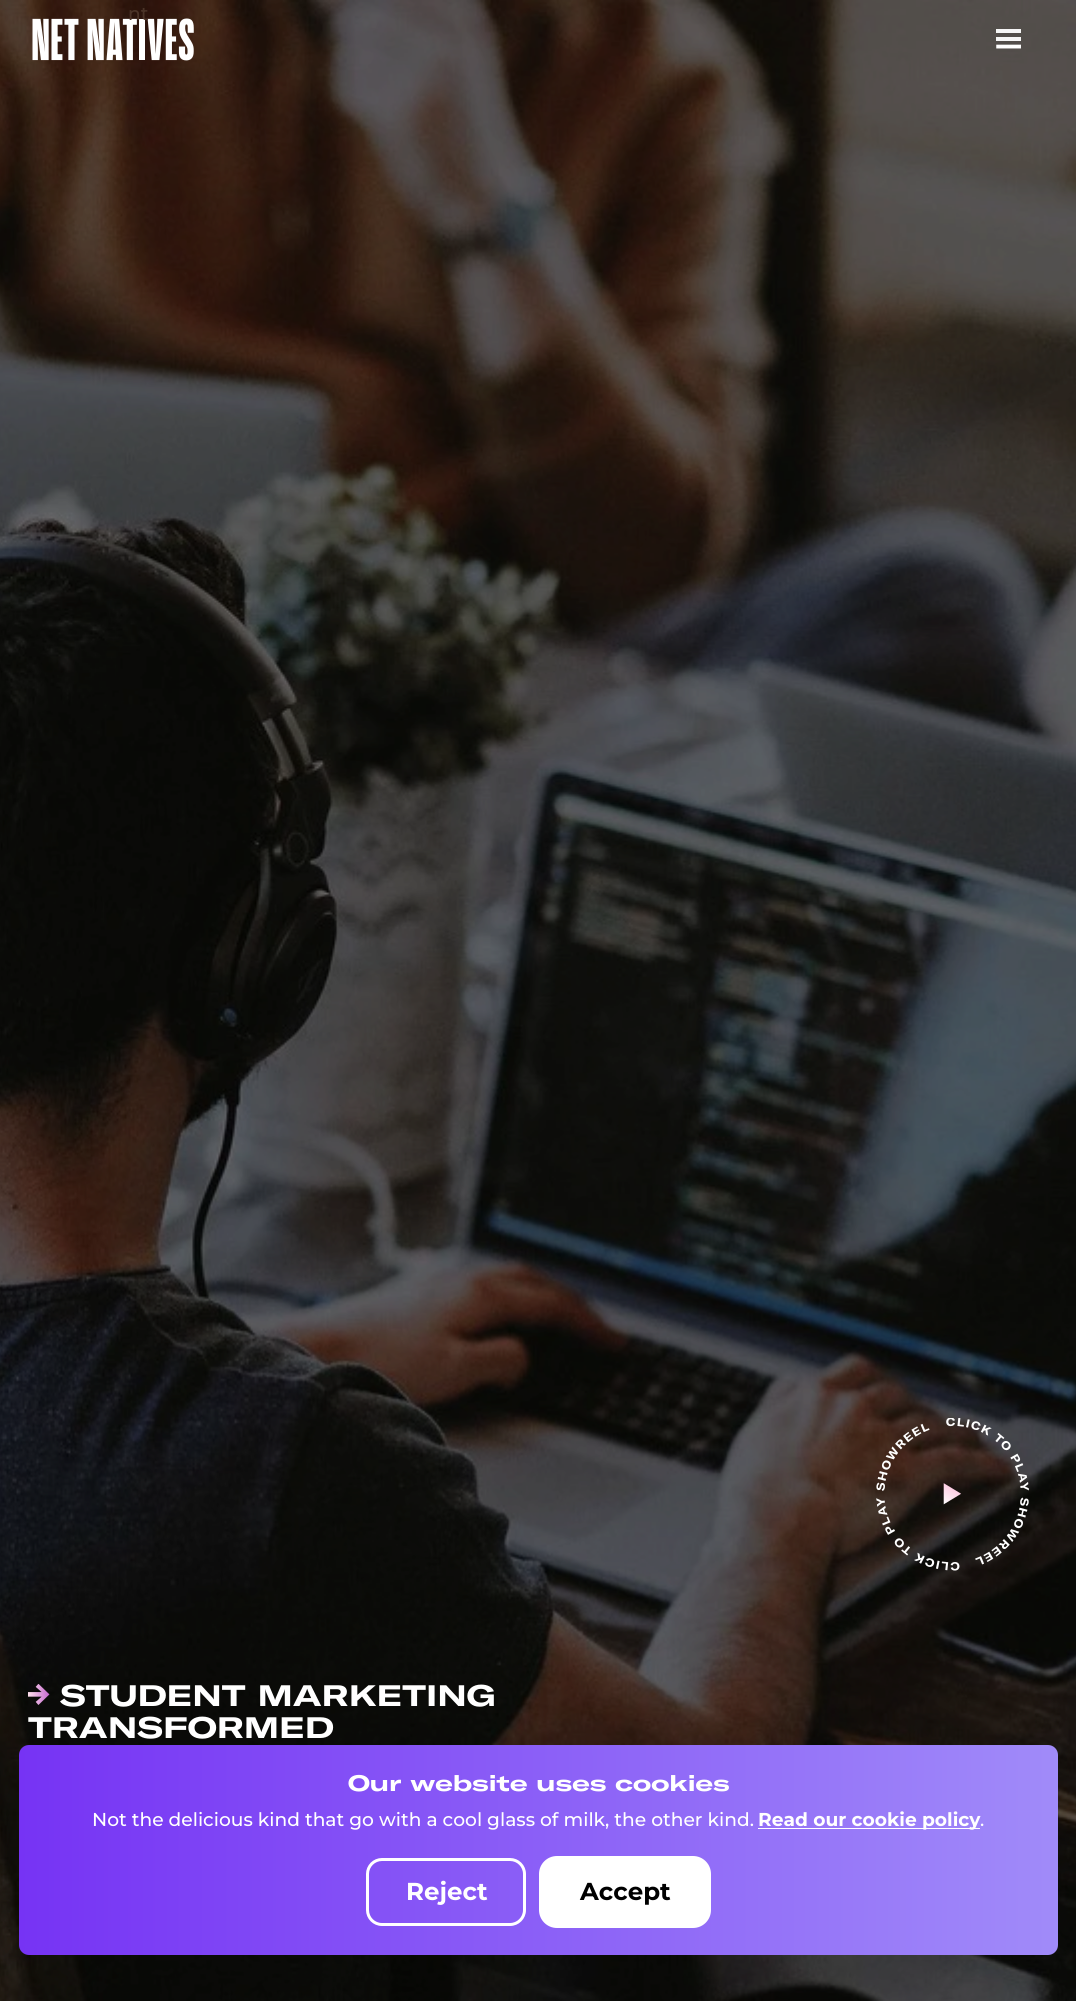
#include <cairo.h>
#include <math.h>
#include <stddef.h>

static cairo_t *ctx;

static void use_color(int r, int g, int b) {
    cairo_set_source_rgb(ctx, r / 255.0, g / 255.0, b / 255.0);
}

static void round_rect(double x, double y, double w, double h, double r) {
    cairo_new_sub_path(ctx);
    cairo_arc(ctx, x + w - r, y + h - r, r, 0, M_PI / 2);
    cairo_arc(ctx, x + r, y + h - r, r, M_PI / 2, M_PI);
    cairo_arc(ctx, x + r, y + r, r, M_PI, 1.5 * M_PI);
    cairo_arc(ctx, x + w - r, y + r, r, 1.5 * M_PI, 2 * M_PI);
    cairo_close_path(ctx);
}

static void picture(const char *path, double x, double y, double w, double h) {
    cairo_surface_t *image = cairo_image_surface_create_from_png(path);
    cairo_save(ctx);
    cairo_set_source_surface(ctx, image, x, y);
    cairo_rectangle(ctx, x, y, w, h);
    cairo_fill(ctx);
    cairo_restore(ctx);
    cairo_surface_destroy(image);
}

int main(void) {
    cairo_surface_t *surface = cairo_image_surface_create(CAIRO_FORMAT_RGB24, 1076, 2001);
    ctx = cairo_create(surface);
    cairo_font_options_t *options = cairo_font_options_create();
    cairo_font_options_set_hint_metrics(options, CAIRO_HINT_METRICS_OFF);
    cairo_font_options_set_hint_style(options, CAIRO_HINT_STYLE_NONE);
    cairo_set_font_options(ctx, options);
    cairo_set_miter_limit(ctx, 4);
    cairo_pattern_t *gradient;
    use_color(255, 255, 255);
    cairo_paint(ctx);
    picture("img3.png", 0, 0, 1076, 2001);
    picture("img1.png", 32, 18, 162, 43);
    cairo_select_font_face(ctx, "Montserrat Thin", CAIRO_FONT_SLANT_NORMAL, CAIRO_FONT_WEIGHT_NORMAL);
    cairo_set_font_size(ctx, 18.65);
    use_color(75, 52, 40);
    cairo_move_to(ctx, 128, 20);
    cairo_show_text(ctx, "nt");
    picture("img2.png", 996, 29, 25, 20);
    picture("img4.png", 876, 1418, 153, 153);
    picture("img5.png", 28, 1684, 22, 21);
    cairo_select_font_face(ctx, "GT America", CAIRO_FONT_SLANT_NORMAL, CAIRO_FONT_WEIGHT_BOLD);
    cairo_set_font_size(ctx, 29.2);
    use_color(255, 255, 255);
    cairo_move_to(ctx, 60, 1706);
    cairo_show_text(ctx, "STUDENT MARKETING");
    cairo_move_to(ctx, 28, 1738);
    cairo_show_text(ctx, "TRANSFORMED");
    gradient = cairo_pattern_create_linear(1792, 1850, 19, 1850);
    cairo_pattern_add_color_stop_rgba(gradient, 0, 0.745, 0.788, 0.992, 1);
    cairo_pattern_add_color_stop_rgba(gradient, 1, 0.463, 0.2, 0.957, 1);
    cairo_set_source(ctx, gradient);
    cairo_pattern_destroy(gradient);
    round_rect(19, 1745, 1039, 210, 10);
    cairo_fill(ctx);
    cairo_set_font_size(ctx, 22);
    use_color(255, 255, 255);
    cairo_move_to(ctx, 348, 1791);
    cairo_show_text(ctx, "Our website uses cookies");
    cairo_select_font_face(ctx, "Montserrat Thin", CAIRO_FONT_SLANT_NORMAL, CAIRO_FONT_WEIGHT_NORMAL);
    cairo_set_font_size(ctx, 18.65);
    cairo_move_to(ctx, 92, 1826);
    cairo_show_text(ctx, "Not the delicious kind that go with a cool glass of milk, the other kind.");
    cairo_rectangle(ctx, 758, 1828, 222, 1);
    cairo_fill(ctx);
    cairo_select_font_face(ctx, "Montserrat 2 Thin", CAIRO_FONT_SLANT_NORMAL, CAIRO_FONT_WEIGHT_NORMAL);
    cairo_move_to(ctx, 758, 1826);
    cairo_show_text(ctx, "Read our cookie policy");
    cairo_select_font_face(ctx, "Montserrat Thin", CAIRO_FONT_SLANT_NORMAL, CAIRO_FONT_WEIGHT_NORMAL);
    cairo_move_to(ctx, 980, 1826);
    cairo_show_text(ctx, ".");
    round_rect(367.5, 1859.5, 157, 65, 14.5);
    cairo_set_line_width(ctx, 3);
    cairo_stroke(ctx);
    cairo_select_font_face(ctx, "Montserrat 2 Thin", CAIRO_FONT_SLANT_NORMAL, CAIRO_FONT_WEIGHT_NORMAL);
    cairo_set_font_size(ctx, 24.5);
    cairo_move_to(ctx, 406, 1900);
    cairo_show_text(ctx, "Reject");
    round_rect(539, 1856, 172, 72, 18);
    cairo_fill(ctx);
    use_color(0, 0, 0);
    cairo_move_to(ctx, 580, 1900);
    cairo_show_text(ctx, "Accept");
    cairo_surface_write_to_png(surface, "result.png");
    cairo_font_options_destroy(options);
    cairo_destroy(ctx);
    cairo_surface_destroy(surface);
    return 0;
}
